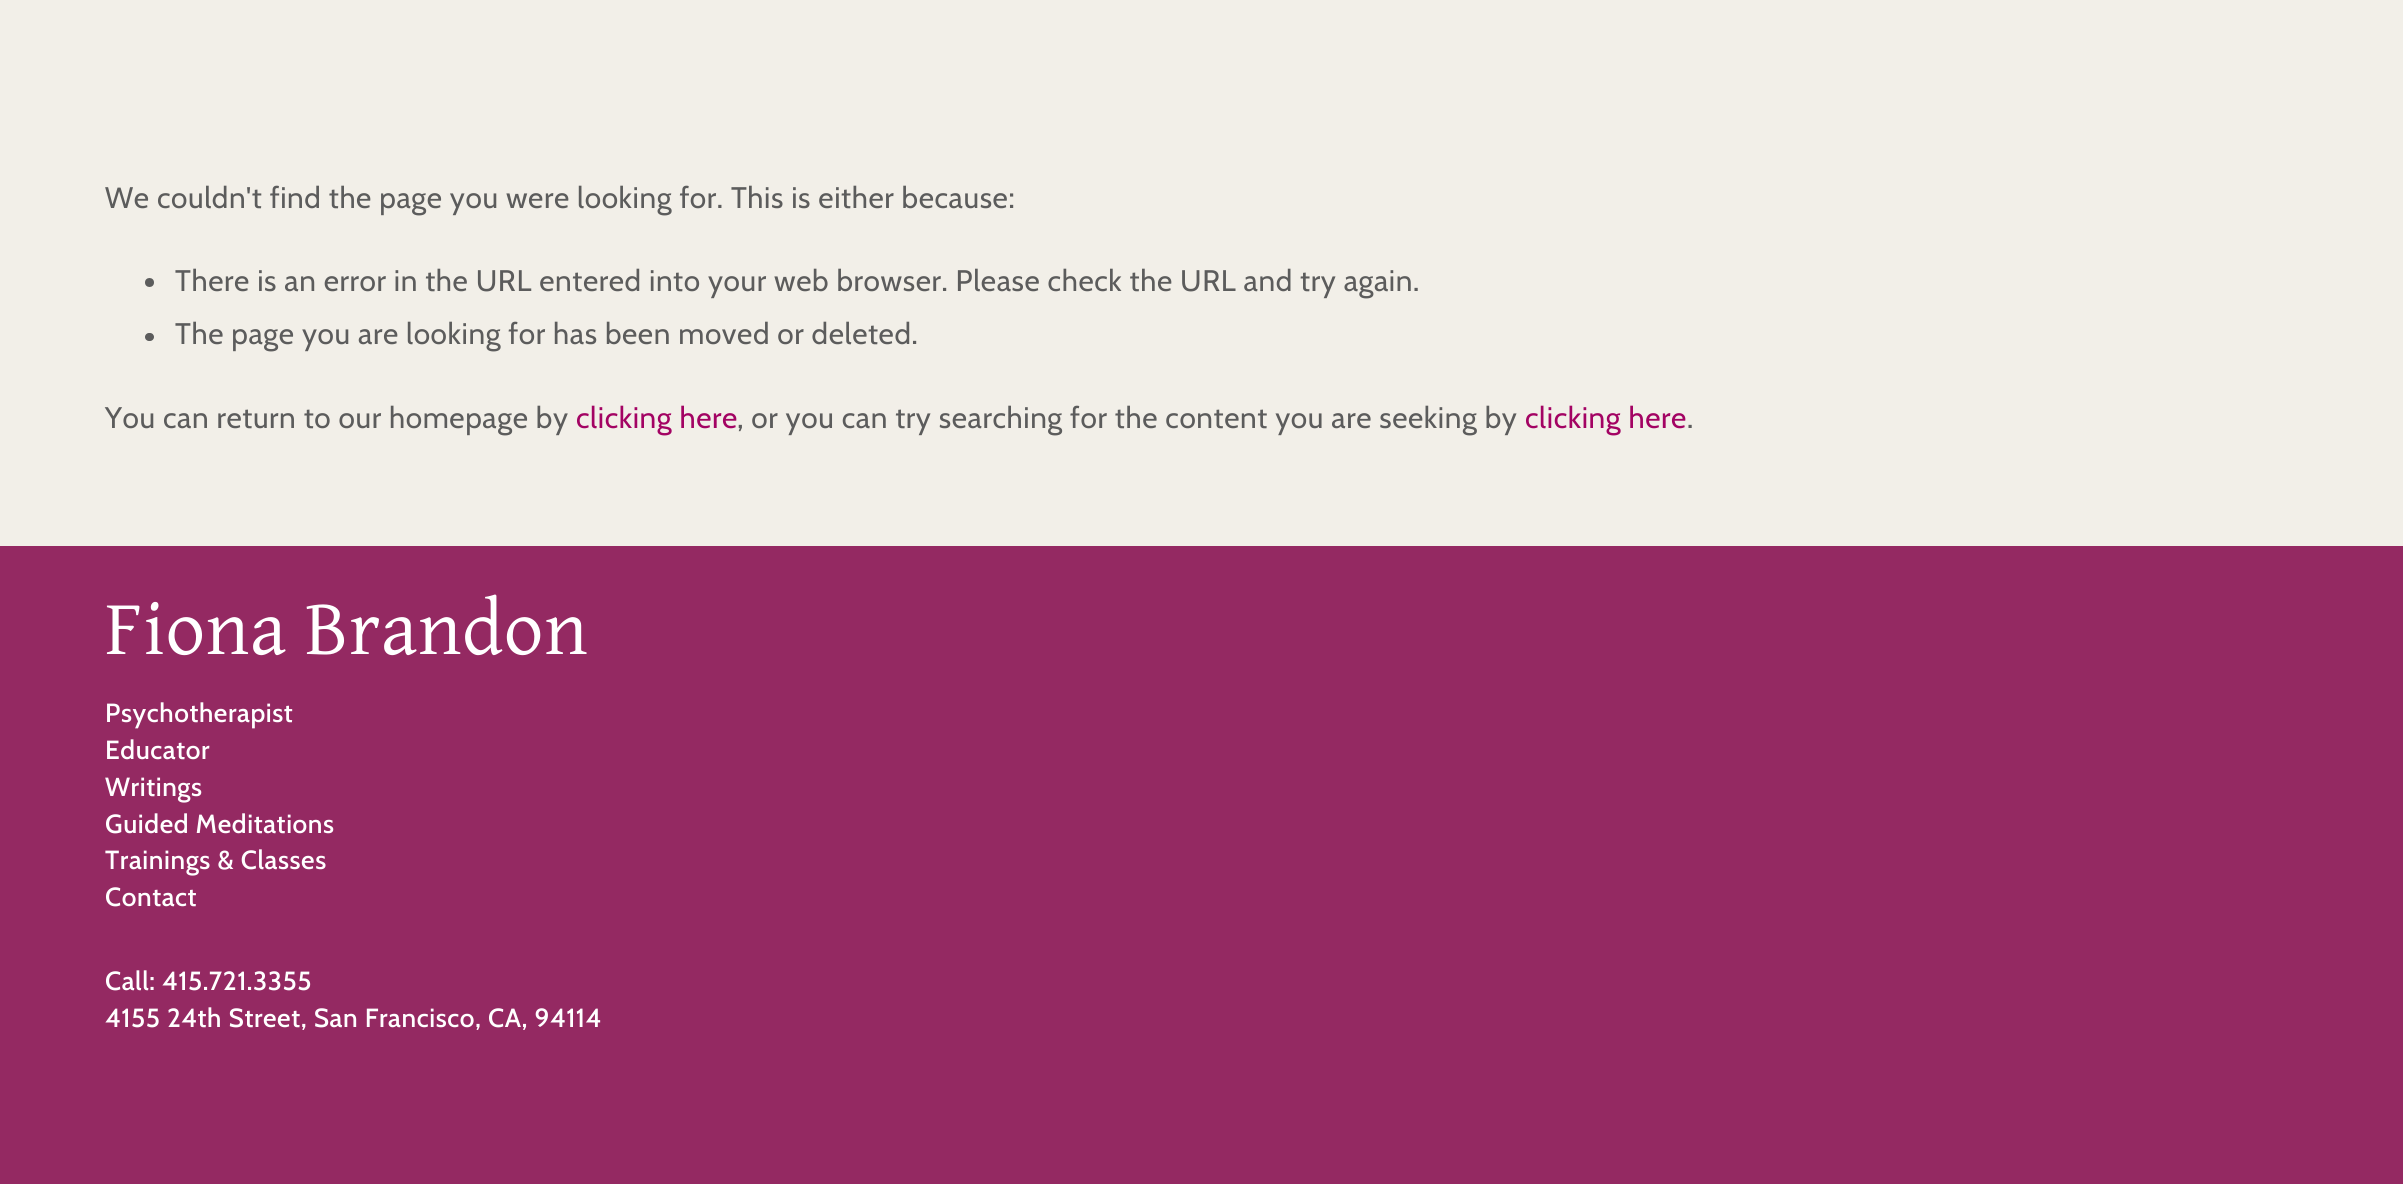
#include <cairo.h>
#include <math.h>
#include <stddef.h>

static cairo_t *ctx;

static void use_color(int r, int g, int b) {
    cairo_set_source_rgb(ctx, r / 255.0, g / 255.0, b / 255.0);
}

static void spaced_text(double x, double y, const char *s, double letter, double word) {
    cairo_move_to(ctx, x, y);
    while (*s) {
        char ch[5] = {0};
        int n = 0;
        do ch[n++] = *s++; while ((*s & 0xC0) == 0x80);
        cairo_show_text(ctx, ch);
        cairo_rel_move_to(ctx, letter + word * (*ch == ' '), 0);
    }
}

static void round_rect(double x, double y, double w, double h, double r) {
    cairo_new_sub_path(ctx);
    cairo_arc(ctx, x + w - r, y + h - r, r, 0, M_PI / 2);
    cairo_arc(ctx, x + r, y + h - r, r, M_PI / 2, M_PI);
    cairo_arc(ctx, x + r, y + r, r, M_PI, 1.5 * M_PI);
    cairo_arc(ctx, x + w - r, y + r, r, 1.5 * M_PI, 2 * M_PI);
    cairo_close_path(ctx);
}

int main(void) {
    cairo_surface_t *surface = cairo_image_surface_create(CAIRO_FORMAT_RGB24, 2403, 1184);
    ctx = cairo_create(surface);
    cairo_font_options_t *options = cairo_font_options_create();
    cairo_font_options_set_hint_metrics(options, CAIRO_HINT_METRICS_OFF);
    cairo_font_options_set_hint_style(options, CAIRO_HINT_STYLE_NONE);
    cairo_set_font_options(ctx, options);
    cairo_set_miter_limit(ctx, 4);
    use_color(148, 41, 98);
    cairo_paint(ctx);
    use_color(242, 239, 232);
    cairo_rectangle(ctx, 0, 0, 2403, 546);
    cairo_fill(ctx);
    cairo_select_font_face(ctx, "Cabin", CAIRO_FONT_SLANT_NORMAL, CAIRO_FONT_WEIGHT_NORMAL);
    cairo_set_font_size(ctx, 29.75);
    use_color(92, 92, 92);
    spaced_text(105, 208, "We couldn't find the page you were looking for. This is either because:", 0.6, 0);
    cairo_new_path(ctx);
    cairo_arc(ctx, 149.5, 282.5, 4.5, 0, 2 * M_PI);
    cairo_fill(ctx);
    spaced_text(175, 291, "There is an error in the URL entered into your web browser. Please check the URL and try again.", 0.6, 0);
    round_rect(145, 333, 9, 8, 4);
    cairo_fill(ctx);
    spaced_text(175, 344, "The page you are looking for has been moved or deleted.", 0.6, 0);
    spaced_text(105, 428, "You can return to our homepage by", 0.6, 0);
    use_color(163, 3, 99);
    spaced_text(576, 428, "clicking here", 0.6, 0);
    use_color(92, 92, 92);
    spaced_text(737, 428, ", or you can try searching for the content you are seeking by", 0.6, 0);
    use_color(163, 3, 99);
    spaced_text(1525, 428, "clicking here", 0.6, 0);
    use_color(92, 92, 92);
    spaced_text(1687, 428, ".", 0.6, 0);
    cairo_select_font_face(ctx, "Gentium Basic", CAIRO_FONT_SLANT_NORMAL, CAIRO_FONT_WEIGHT_NORMAL);
    cairo_set_font_size(ctx, 78.75);
    use_color(255, 255, 255);
    spaced_text(105, 654, "Fiona Brandon", 0.75, 0);
    cairo_select_font_face(ctx, "Cabin Medium", CAIRO_FONT_SLANT_NORMAL, CAIRO_FONT_WEIGHT_NORMAL);
    cairo_set_font_size(ctx, 26.25);
    spaced_text(105, 722, "Psychotherapist", 0.6, 0);
    spaced_text(105, 759, "Educator", 0.6, 0);
    spaced_text(105, 796, "Writings", 0.6, 0);
    spaced_text(105, 833, "Guided Meditations", 0.6, 0);
    spaced_text(105, 869, "Trainings & Classes", 0.6, 0);
    spaced_text(105, 906, "Contact", 0.6, 0);
    spaced_text(105, 990, "Call: 415.721.3355", 0.6, 0);
    spaced_text(105, 1027, "4155 24th Street, San Francisco, CA, 94114", 0.6, 0);
    cairo_surface_write_to_png(surface, "result.png");
    cairo_font_options_destroy(options);
    cairo_destroy(ctx);
    cairo_surface_destroy(surface);
    return 0;
}
